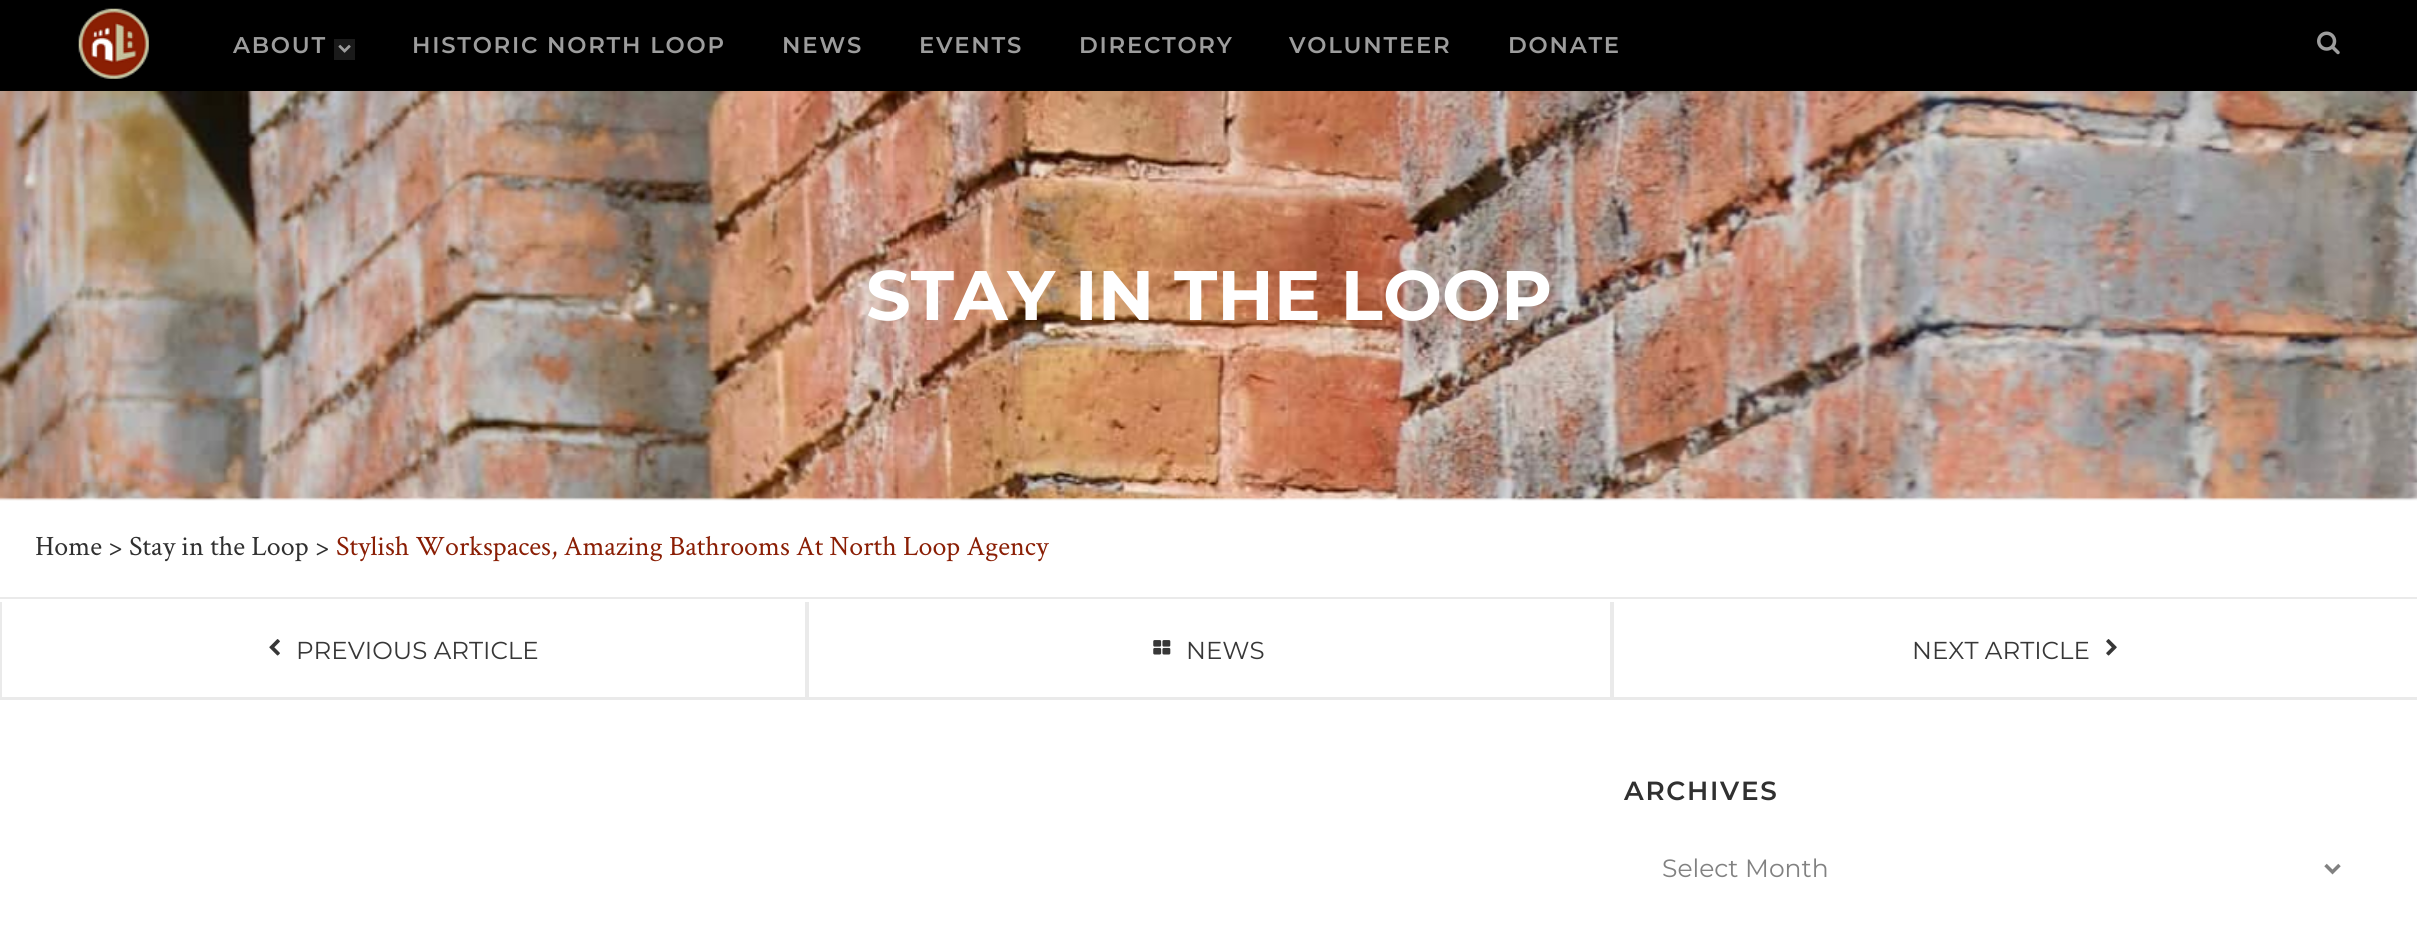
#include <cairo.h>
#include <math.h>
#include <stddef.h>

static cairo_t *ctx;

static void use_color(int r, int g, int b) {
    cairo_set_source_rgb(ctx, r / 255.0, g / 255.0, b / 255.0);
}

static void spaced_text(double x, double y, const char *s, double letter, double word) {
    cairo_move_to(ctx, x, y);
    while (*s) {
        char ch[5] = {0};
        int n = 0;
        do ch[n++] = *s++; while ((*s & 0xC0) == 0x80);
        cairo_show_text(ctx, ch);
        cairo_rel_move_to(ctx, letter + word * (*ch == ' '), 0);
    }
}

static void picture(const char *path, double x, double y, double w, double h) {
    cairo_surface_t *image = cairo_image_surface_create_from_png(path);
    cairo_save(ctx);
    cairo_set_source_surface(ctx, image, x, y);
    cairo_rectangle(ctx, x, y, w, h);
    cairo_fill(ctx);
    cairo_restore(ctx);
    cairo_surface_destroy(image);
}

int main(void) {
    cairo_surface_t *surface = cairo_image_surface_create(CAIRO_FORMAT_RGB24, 2417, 940);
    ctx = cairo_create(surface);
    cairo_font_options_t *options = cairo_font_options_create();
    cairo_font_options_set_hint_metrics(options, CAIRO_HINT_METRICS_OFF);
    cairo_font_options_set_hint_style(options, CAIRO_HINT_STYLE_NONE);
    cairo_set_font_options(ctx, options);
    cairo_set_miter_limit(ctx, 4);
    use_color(255, 255, 255);
    cairo_paint(ctx);
    use_color(0, 0, 0);
    cairo_rectangle(ctx, 0, 0, 2417, 91);
    cairo_fill(ctx);
    picture("img1.png", 78, 8, 71, 71);
    cairo_select_font_face(ctx, "Montserrat SemiBold", CAIRO_FONT_SLANT_NORMAL, CAIRO_FONT_WEIGHT_NORMAL);
    cairo_set_font_size(ctx, 22.75);
    use_color(157, 157, 157);
    spaced_text(233, 53, "ABOUT", 1.75, 0);
    use_color(26, 26, 26);
    cairo_rectangle(ctx, 334, 39, 21, 21);
    cairo_fill(ctx);
    picture("img2.png", 338, 44, 13, 9);
    use_color(157, 157, 157);
    spaced_text(412, 53, "HISTORIC NORTH LOOP", 1.75, 0);
    spaced_text(782, 53, "NEWS", 1.75, 0);
    spaced_text(919, 53, "EVENTS", 1.75, 0);
    spaced_text(1079, 53, "DIRECTORY", 1.75, 0);
    spaced_text(1289, 53, "VOLUNTEER", 1.75, 0);
    spaced_text(1508, 53, "DONATE", 1.75, 0);
    picture("img3.png", 2317, 31, 23, 24);
    picture("img4.png", 0, 91, 2417, 410);
    cairo_select_font_face(ctx, "Montserrat", CAIRO_FONT_SLANT_NORMAL, CAIRO_FONT_WEIGHT_BOLD);
    cairo_set_font_size(ctx, 70);
    use_color(255, 255, 255);
    cairo_move_to(ctx, 866, 320);
    cairo_show_text(ctx, "STAY IN THE LOOP");
    use_color(234, 234, 234);
    cairo_rectangle(ctx, 0, 597, 2417, 2);
    cairo_fill(ctx);
    cairo_select_font_face(ctx, "Crimson Text", CAIRO_FONT_SLANT_NORMAL, CAIRO_FONT_WEIGHT_NORMAL);
    cairo_set_font_size(ctx, 28);
    use_color(48, 48, 48);
    cairo_move_to(ctx, 35, 555);
    cairo_show_text(ctx, "Home > Stay in the Loop >");
    use_color(138, 30, 4);
    cairo_move_to(ctx, 336, 555);
    cairo_show_text(ctx, "Stylish Workspaces, Amazing Bathrooms At North Loop Agency");
    use_color(234, 234, 234);
    cairo_rectangle(ctx, 0, 698, 2417, 2);
    cairo_fill(ctx);
    cairo_rectangle(ctx, 805, 602, 2, 96);
    cairo_fill(ctx);
    cairo_rectangle(ctx, 0, 697, 807, 1);
    cairo_fill(ctx);
    cairo_rectangle(ctx, 0, 602, 2, 96);
    cairo_fill(ctx);
    picture("img5.png", 269, 639, 11, 17);
    cairo_select_font_face(ctx, "Montserrat", CAIRO_FONT_SLANT_NORMAL, CAIRO_FONT_WEIGHT_NORMAL);
    cairo_set_font_size(ctx, 24.5);
    use_color(55, 55, 55);
    cairo_move_to(ctx, 296, 659);
    cairo_show_text(ctx, "PREVIOUS ARTICLE");
    use_color(234, 234, 234);
    cairo_rectangle(ctx, 1610, 602, 2, 96);
    cairo_fill(ctx);
    cairo_rectangle(ctx, 807, 697, 1610, 1);
    cairo_fill(ctx);
    cairo_rectangle(ctx, 807, 602, 2, 96);
    cairo_fill(ctx);
    picture("img6.png", 1153, 640, 18, 15);
    use_color(55, 55, 55);
    cairo_move_to(ctx, 1186, 659);
    cairo_show_text(ctx, "NEWS");
    use_color(234, 234, 234);
    cairo_rectangle(ctx, 1612, 602, 2, 96);
    cairo_fill(ctx);
    use_color(55, 55, 55);
    cairo_move_to(ctx, 1912, 659);
    cairo_show_text(ctx, "NEXT ARTICLE");
    picture("img7.png", 2106, 639, 11, 17);
    cairo_select_font_face(ctx, "Montserrat SemiBold", CAIRO_FONT_SLANT_NORMAL, CAIRO_FONT_WEIGHT_NORMAL);
    cairo_set_font_size(ctx, 26.25);
    use_color(48, 48, 48);
    spaced_text(1624, 800, "ARCHIVES", 1.75, 0);
    cairo_new_path(ctx);
    cairo_move_to(ctx, 2325.5, 865);
    cairo_line_to(ctx, 2332.5, 872);
    cairo_line_to(ctx, 2339.5, 865);
    use_color(129, 129, 129);
    cairo_set_line_width(ctx, 3.5);
    cairo_stroke(ctx);
    cairo_select_font_face(ctx, "Montserrat", CAIRO_FONT_SLANT_NORMAL, CAIRO_FONT_WEIGHT_NORMAL);
    cairo_set_font_size(ctx, 25);
    cairo_move_to(ctx, 1662, 877);
    cairo_show_text(ctx, "Select Month");
    cairo_surface_write_to_png(surface, "result.png");
    cairo_font_options_destroy(options);
    cairo_destroy(ctx);
    cairo_surface_destroy(surface);
    return 0;
}
